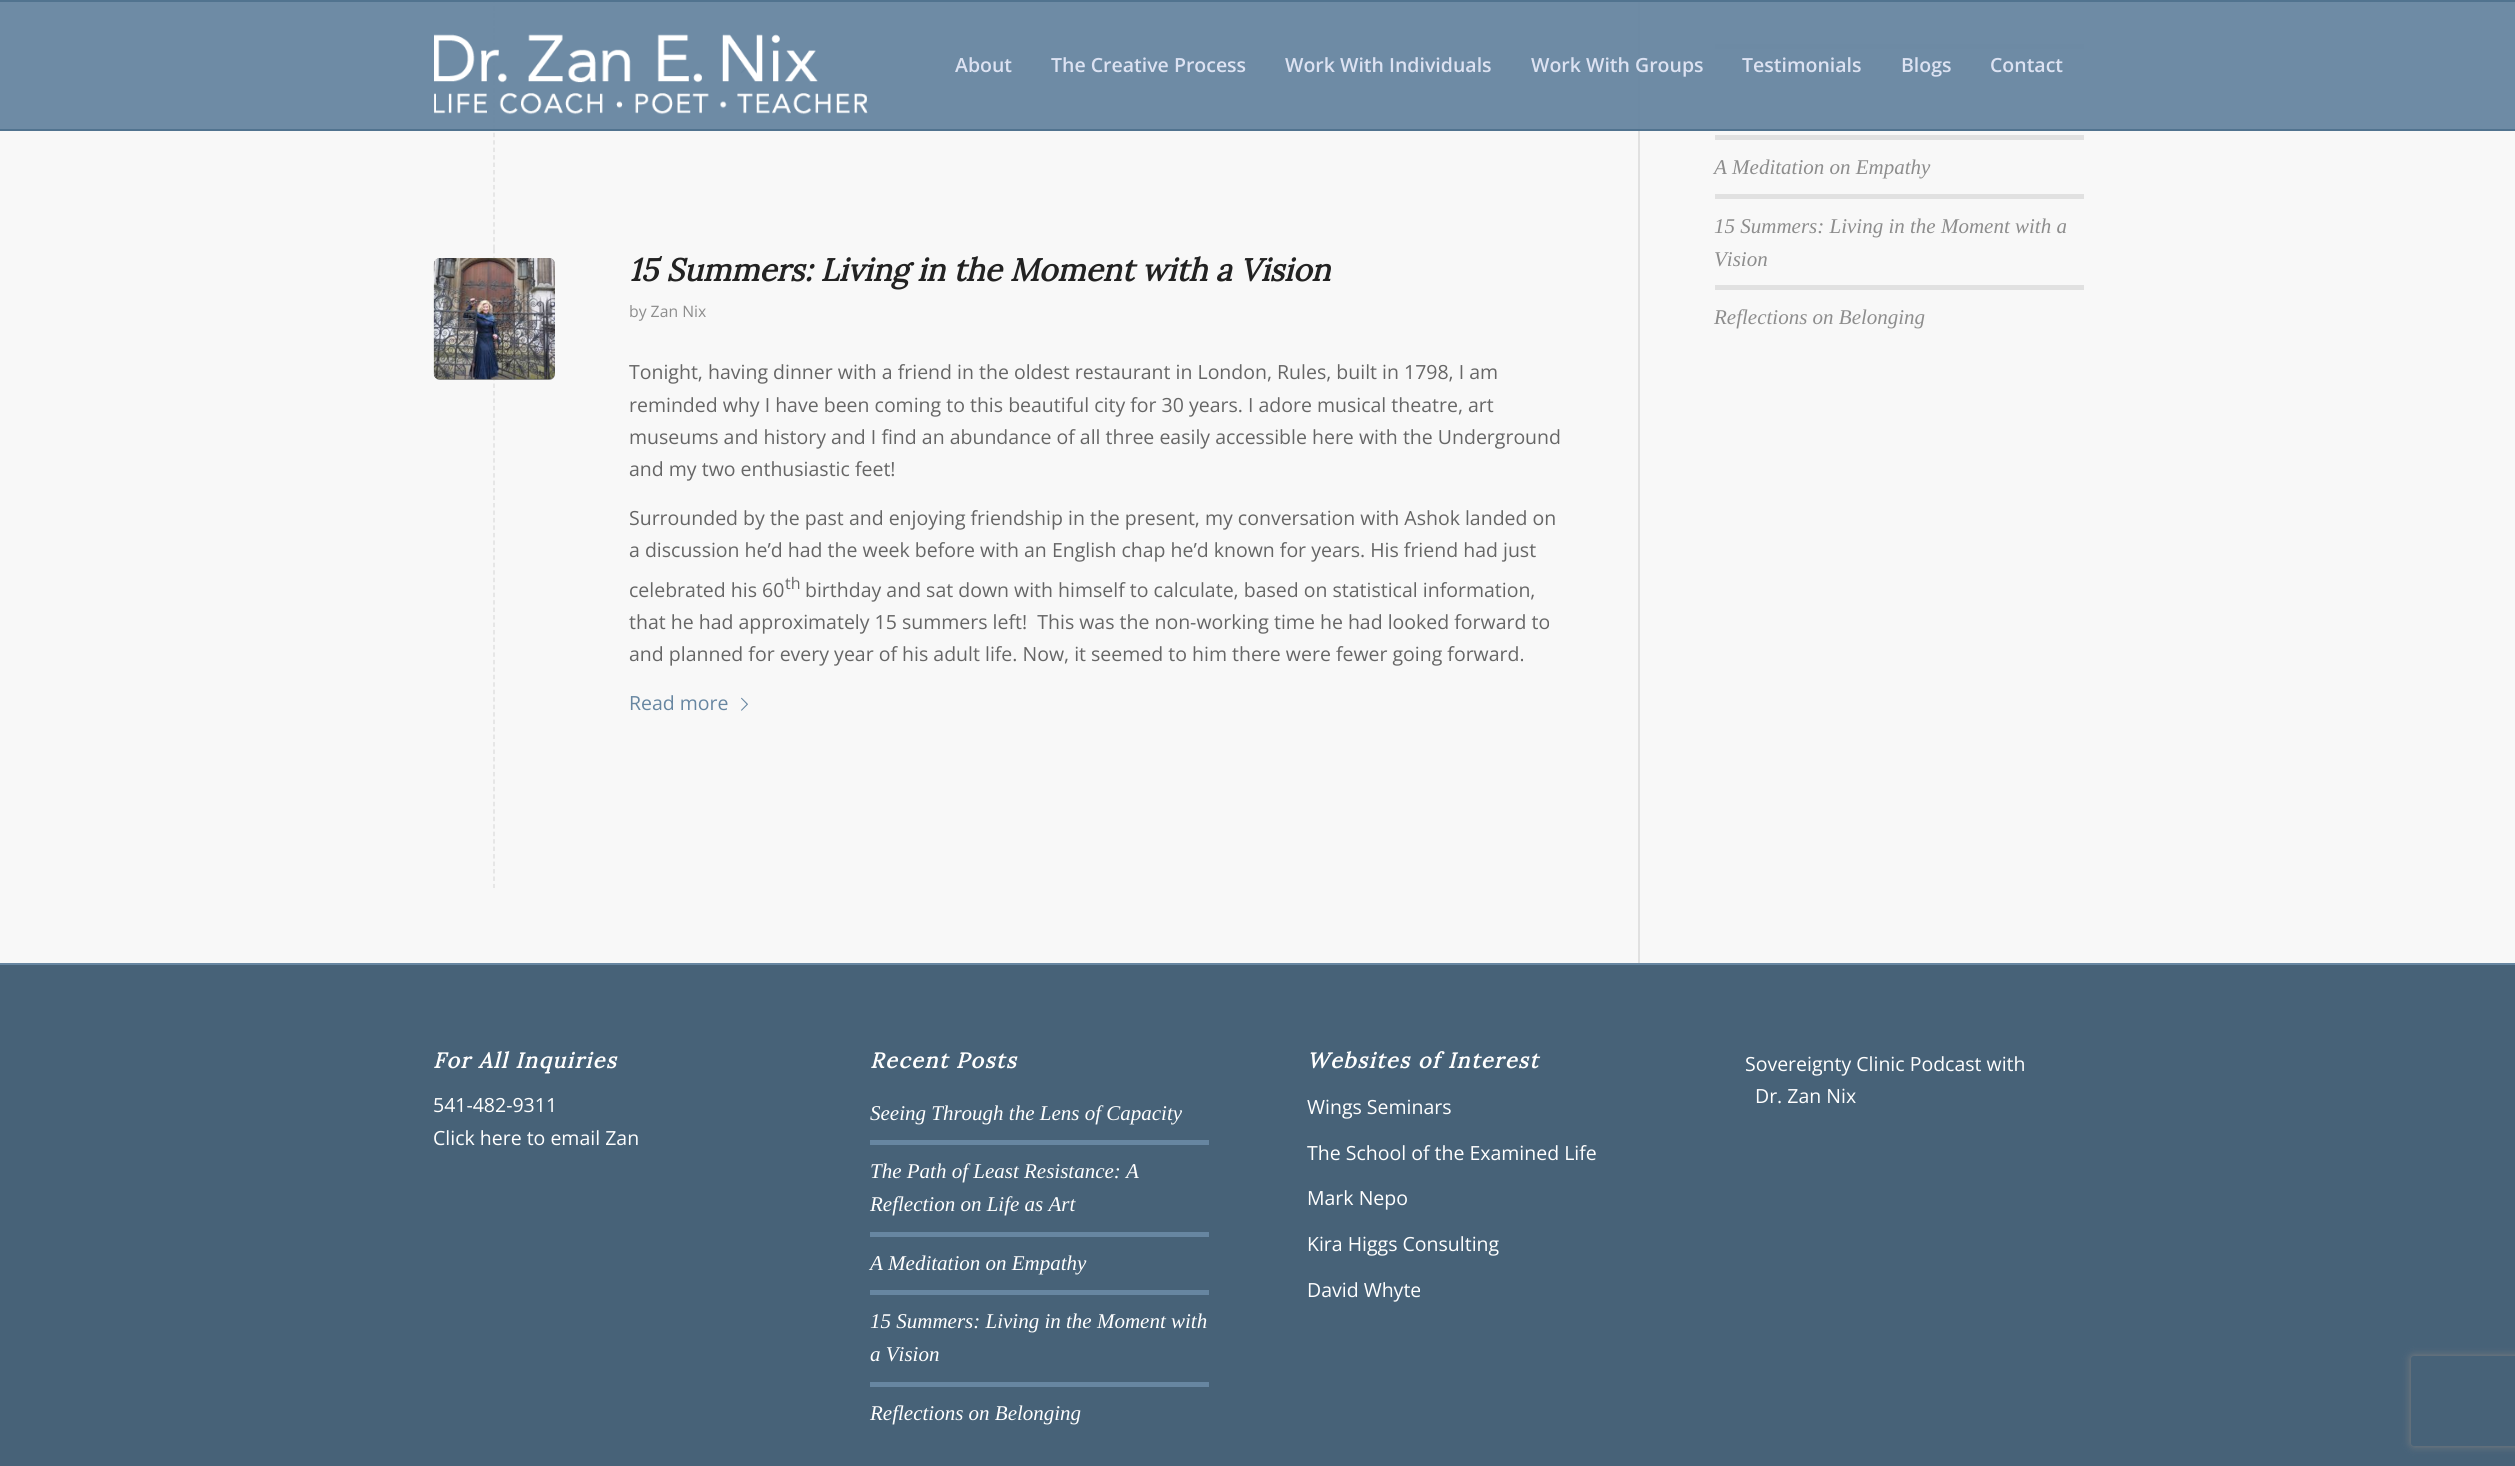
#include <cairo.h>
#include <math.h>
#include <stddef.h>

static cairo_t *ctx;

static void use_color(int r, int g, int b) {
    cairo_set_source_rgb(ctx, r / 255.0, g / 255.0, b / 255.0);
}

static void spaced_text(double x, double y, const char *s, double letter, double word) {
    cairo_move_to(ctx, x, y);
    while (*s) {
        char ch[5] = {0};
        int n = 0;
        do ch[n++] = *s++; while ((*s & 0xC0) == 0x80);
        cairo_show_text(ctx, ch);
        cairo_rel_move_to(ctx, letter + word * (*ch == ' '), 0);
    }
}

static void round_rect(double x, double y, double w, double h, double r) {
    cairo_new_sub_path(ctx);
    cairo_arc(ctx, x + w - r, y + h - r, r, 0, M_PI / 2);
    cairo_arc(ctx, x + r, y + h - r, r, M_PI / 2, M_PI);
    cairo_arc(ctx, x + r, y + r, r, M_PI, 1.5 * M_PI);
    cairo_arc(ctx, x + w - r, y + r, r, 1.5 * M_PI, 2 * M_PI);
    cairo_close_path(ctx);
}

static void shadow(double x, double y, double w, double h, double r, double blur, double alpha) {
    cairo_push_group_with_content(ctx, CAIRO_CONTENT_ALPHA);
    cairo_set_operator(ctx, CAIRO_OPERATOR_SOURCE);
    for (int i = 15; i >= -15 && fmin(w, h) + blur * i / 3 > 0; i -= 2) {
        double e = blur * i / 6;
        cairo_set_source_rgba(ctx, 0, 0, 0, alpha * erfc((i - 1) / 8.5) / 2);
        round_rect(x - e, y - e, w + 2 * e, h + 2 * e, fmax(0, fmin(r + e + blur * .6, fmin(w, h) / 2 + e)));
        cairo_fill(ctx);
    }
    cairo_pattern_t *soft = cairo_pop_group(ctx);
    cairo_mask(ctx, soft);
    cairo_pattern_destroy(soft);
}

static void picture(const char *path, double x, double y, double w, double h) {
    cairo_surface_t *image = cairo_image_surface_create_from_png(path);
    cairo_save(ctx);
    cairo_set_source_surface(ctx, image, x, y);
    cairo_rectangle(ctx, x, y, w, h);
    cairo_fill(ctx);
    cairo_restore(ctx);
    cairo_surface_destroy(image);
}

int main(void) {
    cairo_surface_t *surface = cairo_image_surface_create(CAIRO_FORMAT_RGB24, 2515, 1466);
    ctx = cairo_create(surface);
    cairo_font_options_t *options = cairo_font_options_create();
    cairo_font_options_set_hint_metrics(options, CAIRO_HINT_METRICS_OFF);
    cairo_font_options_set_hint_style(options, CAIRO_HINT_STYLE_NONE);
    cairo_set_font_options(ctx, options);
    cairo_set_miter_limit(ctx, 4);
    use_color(248, 248, 248);
    cairo_paint(ctx);
    use_color(225, 225, 225);
    cairo_rectangle(ctx, 1638, 0, 2, 963);
    cairo_fill(ctx);
    cairo_new_path(ctx);
    cairo_move_to(ctx, 494, -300);
    cairo_line_to(ctx, 494, 249);
    cairo_set_line_width(ctx, 1.5);
    cairo_set_dash(ctx, (double[]){4.5, 2.96}, 2, 0);
    cairo_stroke(ctx);
    picture("img2.png", 741, 60, 6, 14);
    cairo_rectangle(ctx, 1715, 44, 369, 5);
    cairo_fill(ctx);
    cairo_set_source_rgba(ctx, 0.404, 0.525, 0.631, 0.95);
    cairo_rectangle(ctx, 0, 2, 2515, 127);
    cairo_fill(ctx);
    use_color(81, 115, 143);
    cairo_rectangle(ctx, 0, 0, 2515, 2);
    cairo_fill(ctx);
    cairo_rectangle(ctx, 0, 129, 2515, 2);
    cairo_fill(ctx);
    picture("img1.png", 434, 34, 434, 81);
    cairo_select_font_face(ctx, "Open Sans SemiBold", CAIRO_FONT_SLANT_NORMAL, CAIRO_FONT_WEIGHT_NORMAL);
    cairo_set_font_size(ctx, 19.5);
    use_color(220, 226, 242);
    cairo_move_to(ctx, 955, 72);
    cairo_show_text(ctx, "About");
    cairo_move_to(ctx, 1051, 72);
    cairo_show_text(ctx, "The Creative Process");
    cairo_move_to(ctx, 1285, 72);
    cairo_show_text(ctx, "Work With Individuals");
    cairo_move_to(ctx, 1531, 72);
    cairo_show_text(ctx, "Work With Groups");
    cairo_move_to(ctx, 1742, 72);
    cairo_show_text(ctx, "Testimonials");
    cairo_move_to(ctx, 1901, 72);
    cairo_show_text(ctx, "Blogs");
    cairo_move_to(ctx, 1990, 72);
    cairo_show_text(ctx, "Contact");
    cairo_new_path(ctx);
    cairo_move_to(ctx, 494, 249);
    cairo_line_to(ctx, 494, 888);
    use_color(225, 225, 225);
    cairo_set_dash(ctx, (double[]){4.5, 2.97}, 2, 0);
    cairo_stroke(ctx);
    cairo_select_font_face(ctx, "Lora", CAIRO_FONT_SLANT_ITALIC, CAIRO_FONT_WEIGHT_BOLD);
    cairo_set_font_size(ctx, 31.5);
    use_color(34, 34, 34);
    cairo_move_to(ctx, 629, 281);
    cairo_show_text(ctx, "15 Summers: Living in the Moment with a Vision");
    cairo_select_font_face(ctx, "Open Sans", CAIRO_FONT_SLANT_NORMAL, CAIRO_FONT_WEIGHT_NORMAL);
    cairo_set_font_size(ctx, 15.75);
    use_color(141, 141, 141);
    cairo_move_to(ctx, 629, 317);
    cairo_show_text(ctx, "by Zan Nix");
    cairo_set_font_size(ctx, 19.5);
    use_color(102, 102, 102);
    cairo_move_to(ctx, 629, 379);
    cairo_show_text(ctx, "Tonight, having dinner with a friend in the oldest restaurant in London, Rules, built in 1798, I am");
    cairo_move_to(ctx, 629, 412);
    cairo_show_text(ctx, "reminded why I have been coming to this beautiful city for 30 years. I adore musical theatre, art");
    cairo_move_to(ctx, 629, 444);
    cairo_show_text(ctx, "museums and history and I find an abundance of all three easily accessible here with the Underground");
    cairo_move_to(ctx, 629, 476);
    cairo_show_text(ctx, "and my two enthusiastic feet!");
    cairo_move_to(ctx, 629, 525);
    cairo_show_text(ctx, "Surrounded by the past and enjoying friendship in the present, my conversation with Ashok landed on");
    cairo_move_to(ctx, 629, 557);
    cairo_show_text(ctx, "a discussion he’d had the week before with an English chap he’d known for years. His friend had just");
    cairo_move_to(ctx, 629, 597);
    cairo_show_text(ctx, "celebrated his 60");
    cairo_set_font_size(ctx, 16);
    cairo_move_to(ctx, 785, 589);
    cairo_show_text(ctx, "th");
    cairo_set_font_size(ctx, 19.5);
    cairo_move_to(ctx, 805, 597);
    cairo_show_text(ctx, "birthday and sat down with himself to calculate, based on statistical information,");
    cairo_move_to(ctx, 629, 629);
    cairo_show_text(ctx, "that he had approximately 15 summers left!  This was the non-working time he had looked forward to");
    cairo_move_to(ctx, 629, 661);
    cairo_show_text(ctx, "and planned for every year of his adult life. Now, it seemed to him there were fewer going forward.");
    use_color(103, 134, 161);
    cairo_move_to(ctx, 629, 710);
    cairo_show_text(ctx, "Read more");
    picture("img3.png", 741, 697, 7, 14);
    use_color(141, 141, 141);
    round_rect(434, 258, 121, 122, 6);
    cairo_fill(ctx);
    picture("img4.png", 433, 258, 122, 122);
    use_color(225, 225, 225);
    cairo_rectangle(ctx, 1715, 135, 369, 5);
    cairo_fill(ctx);
    cairo_select_font_face(ctx, "Liberation Serif", CAIRO_FONT_SLANT_ITALIC, CAIRO_FONT_WEIGHT_NORMAL);
    cairo_set_font_size(ctx, 21);
    use_color(141, 141, 141);
    cairo_move_to(ctx, 1714, 174);
    cairo_show_text(ctx, "A Meditation on Empathy");
    use_color(225, 225, 225);
    cairo_rectangle(ctx, 1715, 194, 369, 5);
    cairo_fill(ctx);
    use_color(141, 141, 141);
    cairo_move_to(ctx, 1714, 233);
    cairo_show_text(ctx, "15 Summers: Living in the Moment with a");
    cairo_move_to(ctx, 1714, 266);
    cairo_show_text(ctx, "Vision");
    use_color(225, 225, 225);
    cairo_rectangle(ctx, 1715, 285, 369, 5);
    cairo_fill(ctx);
    use_color(141, 141, 141);
    cairo_move_to(ctx, 1714, 324);
    cairo_show_text(ctx, "Reflections on Belonging");
    use_color(71, 98, 120);
    cairo_rectangle(ctx, 0, 965, 2515, 501);
    cairo_fill(ctx);
    use_color(103, 134, 161);
    cairo_rectangle(ctx, 0, 963, 2515, 2);
    cairo_fill(ctx);
    cairo_select_font_face(ctx, "Lora", CAIRO_FONT_SLANT_ITALIC, CAIRO_FONT_WEIGHT_BOLD);
    cairo_set_font_size(ctx, 21.5);
    use_color(255, 255, 255);
    spaced_text(433, 1068, "For All Inquiries", 1.5, 0);
    cairo_select_font_face(ctx, "Open Sans", CAIRO_FONT_SLANT_NORMAL, CAIRO_FONT_WEIGHT_NORMAL);
    cairo_set_font_size(ctx, 19.5);
    cairo_move_to(ctx, 433, 1112);
    cairo_show_text(ctx, "541-482-9311");
    cairo_move_to(ctx, 433, 1145);
    cairo_show_text(ctx, "Click here to email Zan");
    cairo_select_font_face(ctx, "Lora", CAIRO_FONT_SLANT_ITALIC, CAIRO_FONT_WEIGHT_BOLD);
    cairo_set_font_size(ctx, 21.5);
    spaced_text(870, 1068, "Recent Posts", 1.5, 0);
    cairo_select_font_face(ctx, "Liberation Serif", CAIRO_FONT_SLANT_ITALIC, CAIRO_FONT_WEIGHT_NORMAL);
    cairo_set_font_size(ctx, 21);
    cairo_move_to(ctx, 870, 1120);
    cairo_show_text(ctx, "Seeing Through the Lens of Capacity");
    use_color(103, 134, 161);
    cairo_rectangle(ctx, 870, 1140, 339, 5);
    cairo_fill(ctx);
    use_color(255, 255, 255);
    cairo_move_to(ctx, 870, 1178);
    cairo_show_text(ctx, "The Path of Least Resistance: A");
    cairo_move_to(ctx, 870, 1211);
    cairo_show_text(ctx, "Reflection on Life as Art");
    use_color(103, 134, 161);
    cairo_rectangle(ctx, 870, 1232, 339, 5);
    cairo_fill(ctx);
    use_color(255, 255, 255);
    cairo_move_to(ctx, 870, 1270);
    cairo_show_text(ctx, "A Meditation on Empathy");
    use_color(103, 134, 161);
    cairo_rectangle(ctx, 870, 1290, 339, 5);
    cairo_fill(ctx);
    use_color(255, 255, 255);
    cairo_move_to(ctx, 870, 1328);
    cairo_show_text(ctx, "15 Summers: Living in the Moment with");
    cairo_move_to(ctx, 870, 1361);
    cairo_show_text(ctx, "a Vision");
    use_color(103, 134, 161);
    cairo_rectangle(ctx, 870, 1382, 339, 5);
    cairo_fill(ctx);
    use_color(255, 255, 255);
    cairo_move_to(ctx, 870, 1420);
    cairo_show_text(ctx, "Reflections on Belonging");
    cairo_select_font_face(ctx, "Lora", CAIRO_FONT_SLANT_ITALIC, CAIRO_FONT_WEIGHT_BOLD);
    cairo_set_font_size(ctx, 21.5);
    spaced_text(1307, 1068, "Websites of Interest", 1.5, 0);
    cairo_select_font_face(ctx, "Open Sans", CAIRO_FONT_SLANT_NORMAL, CAIRO_FONT_WEIGHT_NORMAL);
    cairo_set_font_size(ctx, 19.5);
    cairo_move_to(ctx, 1307, 1114);
    cairo_show_text(ctx, "Wings Seminars");
    cairo_move_to(ctx, 1307, 1160);
    cairo_show_text(ctx, "The School of the Examined Life");
    cairo_move_to(ctx, 1307, 1205);
    cairo_show_text(ctx, "Mark Nepo");
    cairo_move_to(ctx, 1307, 1251);
    cairo_show_text(ctx, "Kira Higgs Consulting");
    cairo_move_to(ctx, 1307, 1297);
    cairo_show_text(ctx, "David Whyte");
    cairo_move_to(ctx, 1745, 1071);
    cairo_show_text(ctx, "Sovereignty Clinic Podcast with");
    cairo_move_to(ctx, 1755, 1103);
    cairo_show_text(ctx, "Dr. Zan Nix");
    cairo_save(ctx);
    cairo_set_fill_rule(ctx, CAIRO_FILL_RULE_EVEN_ODD);
    cairo_new_path(ctx);
    cairo_move_to(ctx, 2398, 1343);
    cairo_line_to(ctx, 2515, 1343);
    cairo_line_to(ctx, 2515, 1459);
    cairo_line_to(ctx, 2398, 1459);
    cairo_close_path(ctx);
    cairo_move_to(ctx, 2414, 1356);
    cairo_line_to(ctx, 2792, 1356);
    cairo_curve_to(ctx, 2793.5, 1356, 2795, 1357.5, 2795, 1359);
    cairo_line_to(ctx, 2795, 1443);
    cairo_curve_to(ctx, 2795, 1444.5, 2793.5, 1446, 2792, 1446);
    cairo_line_to(ctx, 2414, 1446);
    cairo_curve_to(ctx, 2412.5, 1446, 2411, 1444.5, 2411, 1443);
    cairo_line_to(ctx, 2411, 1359);
    cairo_curve_to(ctx, 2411, 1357.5, 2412.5, 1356, 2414, 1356);
    cairo_close_path(ctx);
    cairo_clip(ctx);
    use_color(128, 128, 128);
    shadow(2411, 1356, 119, 90, 3, 4, 1);
    cairo_restore(ctx);
    cairo_surface_write_to_png(surface, "result.png");
    cairo_font_options_destroy(options);
    cairo_destroy(ctx);
    cairo_surface_destroy(surface);
    return 0;
}
